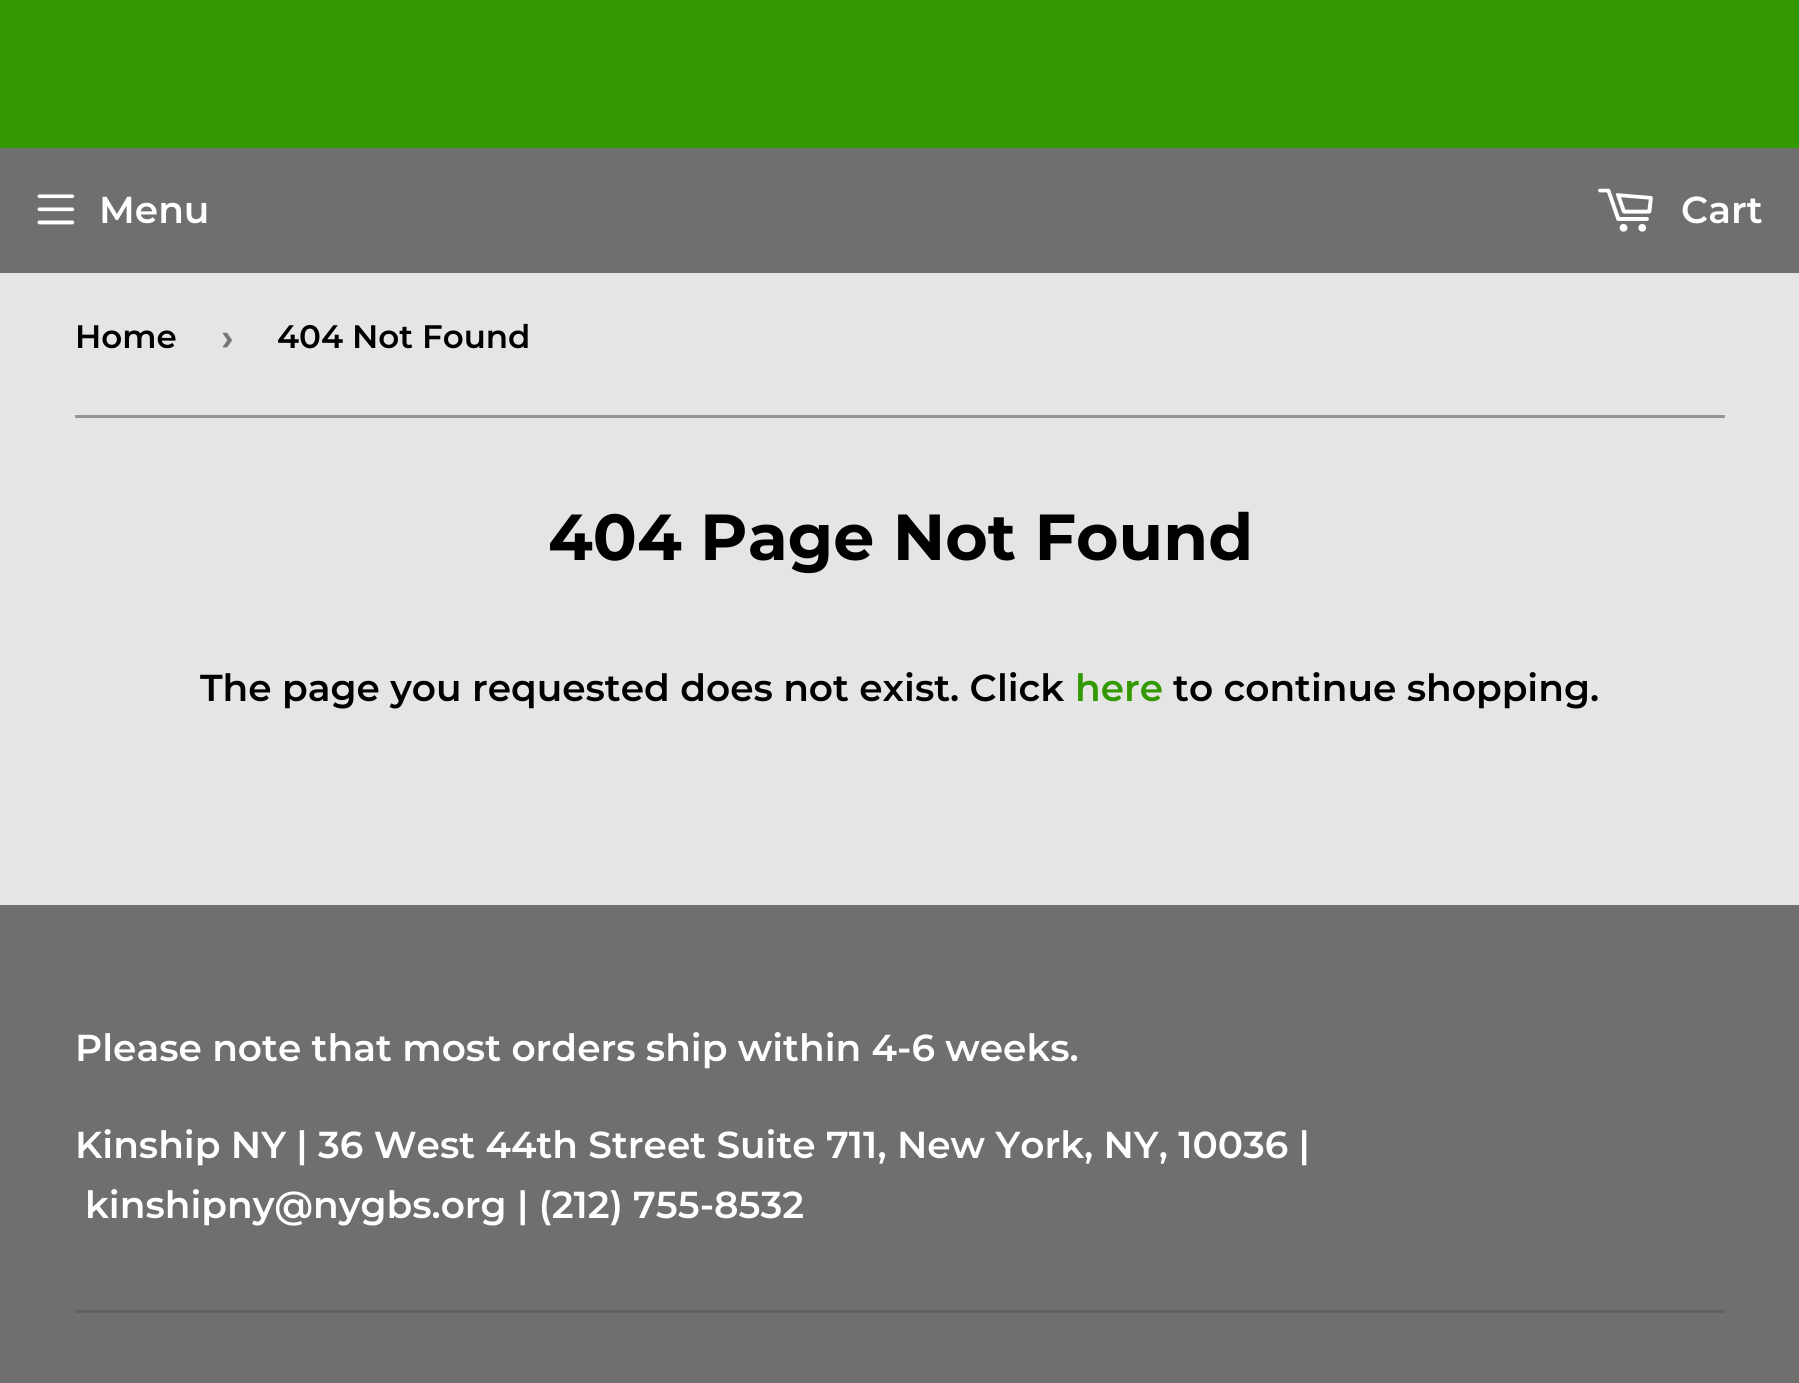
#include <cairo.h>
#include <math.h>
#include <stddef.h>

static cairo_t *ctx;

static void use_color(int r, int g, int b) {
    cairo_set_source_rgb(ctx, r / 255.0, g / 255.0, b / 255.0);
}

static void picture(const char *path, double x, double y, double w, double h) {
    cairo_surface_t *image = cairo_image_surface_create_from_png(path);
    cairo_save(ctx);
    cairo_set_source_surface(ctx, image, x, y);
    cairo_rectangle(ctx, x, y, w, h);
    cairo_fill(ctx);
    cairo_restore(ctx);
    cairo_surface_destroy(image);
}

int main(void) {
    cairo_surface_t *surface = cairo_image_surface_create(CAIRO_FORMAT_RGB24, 1799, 1383);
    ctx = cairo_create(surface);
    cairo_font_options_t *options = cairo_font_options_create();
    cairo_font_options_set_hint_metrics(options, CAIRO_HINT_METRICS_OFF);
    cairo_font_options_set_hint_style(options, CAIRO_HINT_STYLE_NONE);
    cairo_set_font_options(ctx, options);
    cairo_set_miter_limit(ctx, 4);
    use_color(229, 229, 229);
    cairo_paint(ctx);
    use_color(51, 153, 0);
    cairo_rectangle(ctx, 0, 0, 1799, 148);
    cairo_fill(ctx);
    use_color(111, 111, 111);
    cairo_rectangle(ctx, 0, 148, 1799, 125);
    cairo_fill(ctx);
    picture("img1.png", 37, 194, 38, 31);
    cairo_select_font_face(ctx, "Montserrat SemiBold", CAIRO_FONT_SLANT_NORMAL, CAIRO_FONT_WEIGHT_NORMAL);
    cairo_set_font_size(ctx, 37.5);
    use_color(255, 255, 255);
    cairo_move_to(ctx, 99, 223);
    cairo_show_text(ctx, "Menu");
    picture("img2.png", 1598, 188, 55, 44);
    cairo_move_to(ctx, 1681, 223);
    cairo_show_text(ctx, "Cart");
    use_color(149, 149, 149);
    cairo_rectangle(ctx, 75, 415, 1650, 3);
    cairo_fill(ctx);
    cairo_set_font_size(ctx, 32.5);
    use_color(0, 0, 0);
    cairo_move_to(ctx, 75, 348);
    cairo_show_text(ctx, "Home");
    cairo_select_font_face(ctx, "Liberation Sans", CAIRO_FONT_SLANT_NORMAL, CAIRO_FONT_WEIGHT_BOLD);
    cairo_set_font_size(ctx, 37.5);
    use_color(118, 118, 118);
    cairo_move_to(ctx, 221, 350);
    cairo_show_text(ctx, "›");
    cairo_select_font_face(ctx, "Montserrat SemiBold", CAIRO_FONT_SLANT_NORMAL, CAIRO_FONT_WEIGHT_NORMAL);
    cairo_set_font_size(ctx, 32.5);
    use_color(0, 0, 0);
    cairo_move_to(ctx, 277, 348);
    cairo_show_text(ctx, "404 Not Found");
    cairo_select_font_face(ctx, "Montserrat", CAIRO_FONT_SLANT_NORMAL, CAIRO_FONT_WEIGHT_BOLD);
    cairo_set_font_size(ctx, 65);
    cairo_move_to(ctx, 548, 560);
    cairo_show_text(ctx, "404 Page Not Found");
    cairo_select_font_face(ctx, "Montserrat SemiBold", CAIRO_FONT_SLANT_NORMAL, CAIRO_FONT_WEIGHT_NORMAL);
    cairo_set_font_size(ctx, 37.5);
    cairo_move_to(ctx, 200, 701);
    cairo_show_text(ctx, "The page you requested does not exist. Click");
    use_color(51, 153, 0);
    cairo_move_to(ctx, 1075, 701);
    cairo_show_text(ctx, "here");
    use_color(0, 0, 0);
    cairo_move_to(ctx, 1173, 701);
    cairo_show_text(ctx, "to continue shopping.");
    use_color(111, 111, 111);
    cairo_rectangle(ctx, 0, 905, 1799, 478);
    cairo_fill(ctx);
    use_color(255, 255, 255);
    cairo_move_to(ctx, 75, 1061);
    cairo_show_text(ctx, "Please note that most orders ship within 4-6 weeks.");
    cairo_move_to(ctx, 75, 1158);
    cairo_show_text(ctx, "Kinship NY | 36 West 44th Street Suite 711, New York, NY, 10036 |");
    cairo_move_to(ctx, 85, 1218);
    cairo_show_text(ctx, "kinshipny@nygbs.org | (212) 755-8532");
    use_color(98, 98, 98);
    cairo_rectangle(ctx, 75, 1310, 1650, 3);
    cairo_fill(ctx);
    cairo_surface_write_to_png(surface, "result.png");
    cairo_font_options_destroy(options);
    cairo_destroy(ctx);
    cairo_surface_destroy(surface);
    return 0;
}
